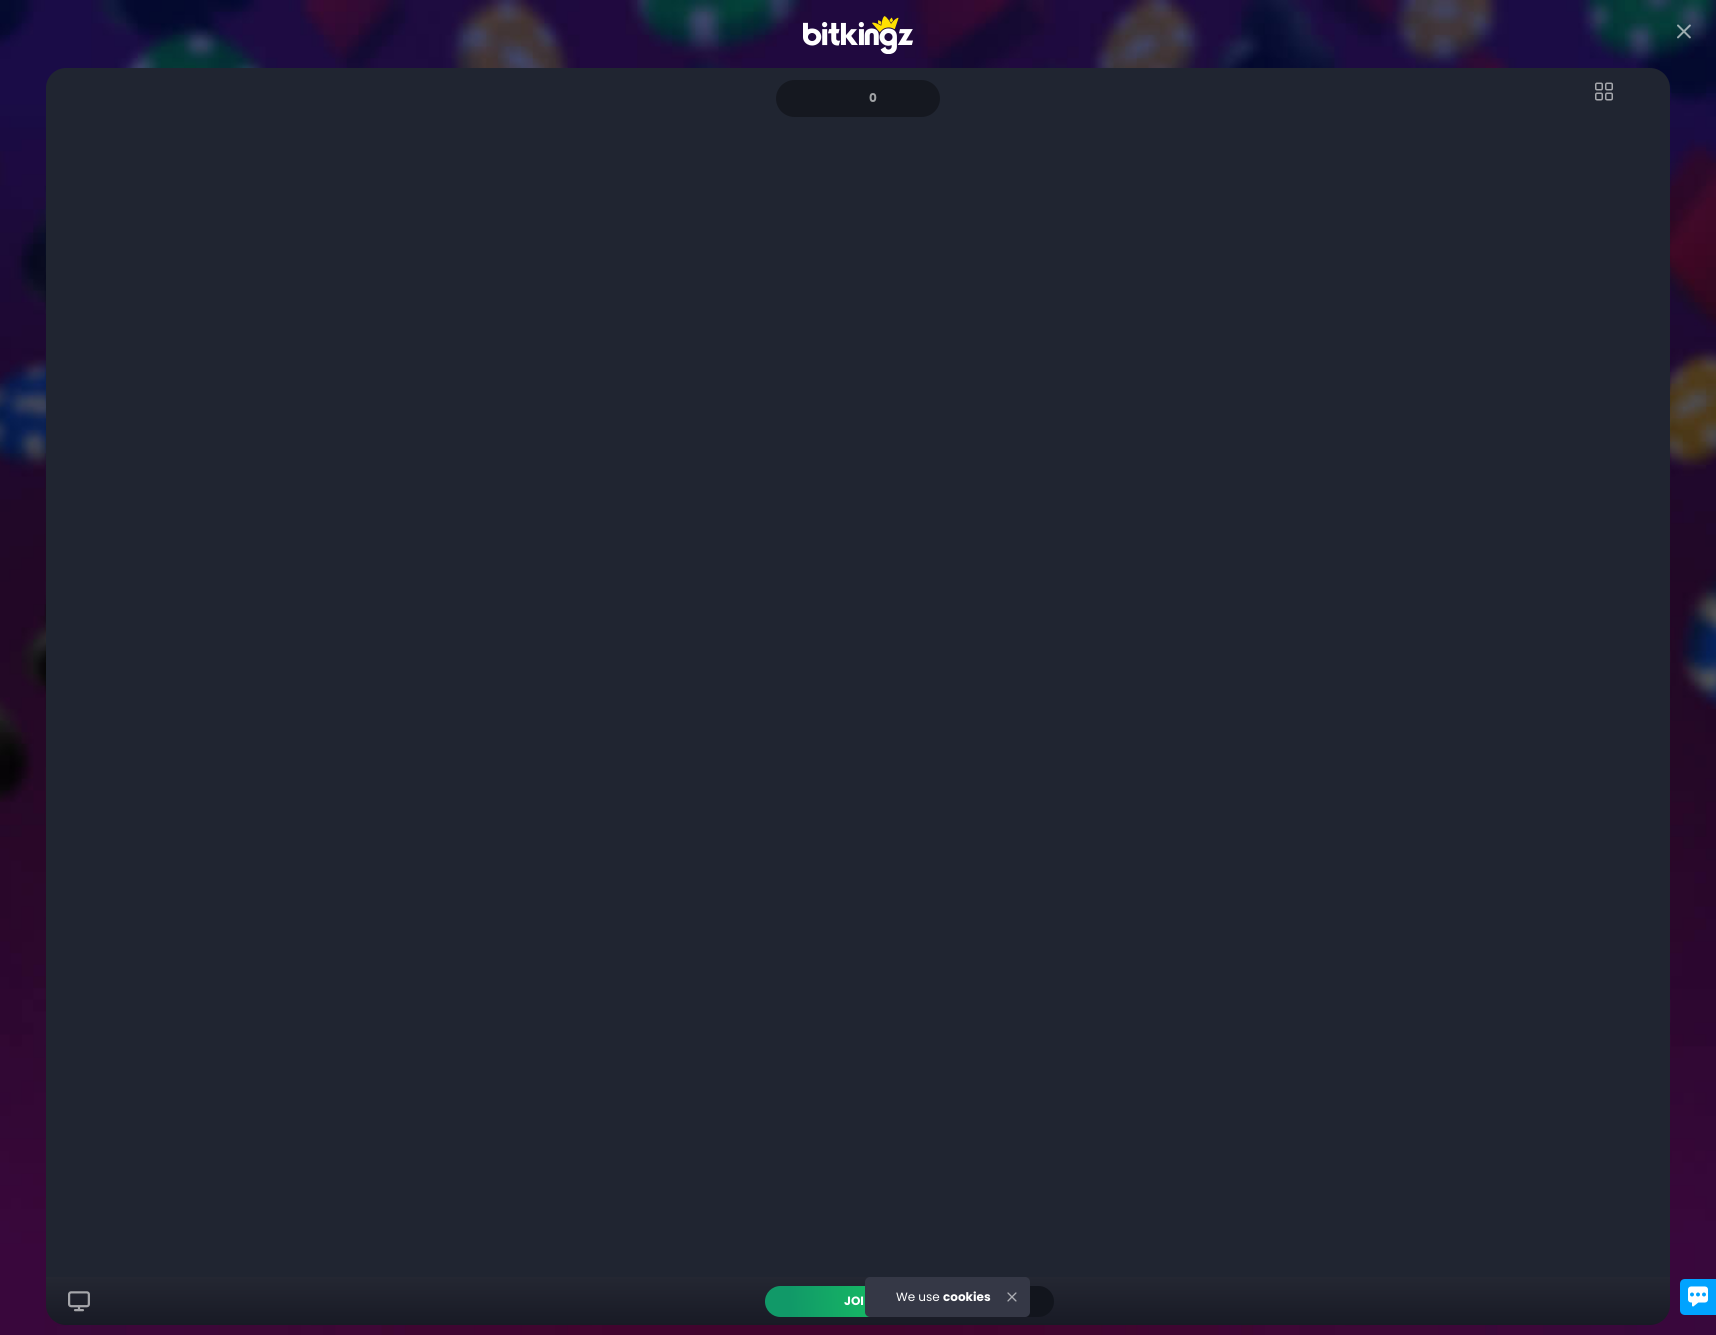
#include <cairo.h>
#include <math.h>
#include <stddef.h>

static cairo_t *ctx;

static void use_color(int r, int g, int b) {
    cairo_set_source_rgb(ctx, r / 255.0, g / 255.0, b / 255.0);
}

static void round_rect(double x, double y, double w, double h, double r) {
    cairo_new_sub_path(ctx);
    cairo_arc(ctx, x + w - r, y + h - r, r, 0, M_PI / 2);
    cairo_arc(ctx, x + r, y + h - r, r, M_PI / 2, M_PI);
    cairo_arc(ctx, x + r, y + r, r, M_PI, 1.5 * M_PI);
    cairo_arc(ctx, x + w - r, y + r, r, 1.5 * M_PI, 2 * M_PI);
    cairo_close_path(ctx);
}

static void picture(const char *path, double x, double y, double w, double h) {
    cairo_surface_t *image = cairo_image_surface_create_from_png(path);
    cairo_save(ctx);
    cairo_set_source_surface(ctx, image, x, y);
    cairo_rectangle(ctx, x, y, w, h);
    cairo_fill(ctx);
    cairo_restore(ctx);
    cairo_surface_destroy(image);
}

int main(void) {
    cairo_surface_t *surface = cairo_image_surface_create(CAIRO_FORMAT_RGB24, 1716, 1335);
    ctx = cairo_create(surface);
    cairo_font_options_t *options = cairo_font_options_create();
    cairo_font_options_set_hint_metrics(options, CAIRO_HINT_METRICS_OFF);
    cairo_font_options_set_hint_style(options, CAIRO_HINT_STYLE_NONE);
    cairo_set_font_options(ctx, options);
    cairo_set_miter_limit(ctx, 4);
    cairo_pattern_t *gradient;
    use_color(255, 255, 255);
    cairo_paint(ctx);
    picture("img1.png", 0, 0, 1716, 1335);
    picture("img2.png", 803, 16, 110, 38);
    picture("img3.png", 1677, 24, 14, 15);
    use_color(32, 37, 49);
    cairo_new_path(ctx);
    cairo_move_to(ctx, 66, 68);
    cairo_line_to(ctx, 1650, 68);
    cairo_curve_to(ctx, 1661, 68, 1670, 77, 1670, 88);
    cairo_line_to(ctx, 1670, 116);
    cairo_line_to(ctx, 46, 116);
    cairo_line_to(ctx, 46, 88);
    cairo_curve_to(ctx, 46, 77, 55, 68, 66, 68);
    cairo_close_path(ctx);
    cairo_fill(ctx);
    cairo_rectangle(ctx, 46, 116, 1624, 1161);
    cairo_fill(ctx);
    use_color(21, 24, 32);
    round_rect(776, 80, 164, 37, 18.5);
    cairo_fill(ctx);
    cairo_select_font_face(ctx, "Poppins", CAIRO_FONT_SLANT_NORMAL, CAIRO_FONT_WEIGHT_BOLD);
    cairo_set_font_size(ctx, 12);
    use_color(161, 163, 166);
    cairo_move_to(ctx, 869, 102);
    cairo_show_text(ctx, "0");
    picture("img4.png", 1595, 82, 18, 19);
    gradient = cairo_pattern_create_linear(858, 1277, 858, 1325);
    cairo_pattern_add_color_stop_rgba(gradient, 0, 0.141, 0.153, 0.196, 1);
    cairo_pattern_add_color_stop_rgba(gradient, 1, 0.094, 0.102, 0.145, 1);
    cairo_set_source(ctx, gradient);
    cairo_pattern_destroy(gradient);
    cairo_new_path(ctx);
    cairo_move_to(ctx, 46, 1277);
    cairo_line_to(ctx, 1670, 1277);
    cairo_line_to(ctx, 1670, 1305);
    cairo_curve_to(ctx, 1670, 1316, 1661, 1325, 1650, 1325);
    cairo_line_to(ctx, 66, 1325);
    cairo_curve_to(ctx, 55, 1325, 46, 1316, 46, 1305);
    cairo_close_path(ctx);
    cairo_fill(ctx);
    picture("img5.png", 68, 1291, 22, 21);
    gradient = cairo_pattern_create_linear(764, 1307, 952, 1296);
    cairo_pattern_add_color_stop_rgba(gradient, 0.14, 0.067, 0.6, 0.408, 1);
    cairo_pattern_add_color_stop_rgba(gradient, 0.96, 0.102, 0.824, 0.376, 1);
    cairo_set_source(ctx, gradient);
    cairo_pattern_destroy(gradient);
    round_rect(765, 1286, 186, 31, 15.5);
    cairo_fill(ctx);
    use_color(255, 255, 255);
    cairo_move_to(ctx, 844, 1305);
    cairo_show_text(ctx, "JOI");
    use_color(18, 21, 29);
    round_rect(959, 1286, 95, 31, 15.5);
    cairo_fill(ctx);
    use_color(53, 56, 70);
    round_rect(865, 1277, 165, 40, 5);
    cairo_fill(ctx);
    cairo_select_font_face(ctx, "Poppins", CAIRO_FONT_SLANT_NORMAL, CAIRO_FONT_WEIGHT_NORMAL);
    use_color(255, 255, 255);
    cairo_move_to(ctx, 896, 1301);
    cairo_show_text(ctx, "We use");
    cairo_select_font_face(ctx, "Poppins", CAIRO_FONT_SLANT_NORMAL, CAIRO_FONT_WEIGHT_BOLD);
    cairo_move_to(ctx, 943, 1301);
    cairo_show_text(ctx, "cookies");
    picture("img6.png", 1007, 1292, 10, 10);
    use_color(0, 163, 255);
    cairo_new_path(ctx);
    cairo_move_to(ctx, 1685, 1279);
    cairo_line_to(ctx, 1716, 1279);
    cairo_line_to(ctx, 1716, 1315);
    cairo_line_to(ctx, 1685, 1315);
    cairo_curve_to(ctx, 1682, 1315, 1680, 1313, 1680, 1310);
    cairo_line_to(ctx, 1680, 1284);
    cairo_curve_to(ctx, 1680, 1281, 1682, 1279, 1685, 1279);
    cairo_close_path(ctx);
    cairo_fill(ctx);
    picture("img7.png", 1688, 1286, 20, 21);
    cairo_surface_write_to_png(surface, "result.png");
    cairo_font_options_destroy(options);
    cairo_destroy(ctx);
    cairo_surface_destroy(surface);
    return 0;
}
